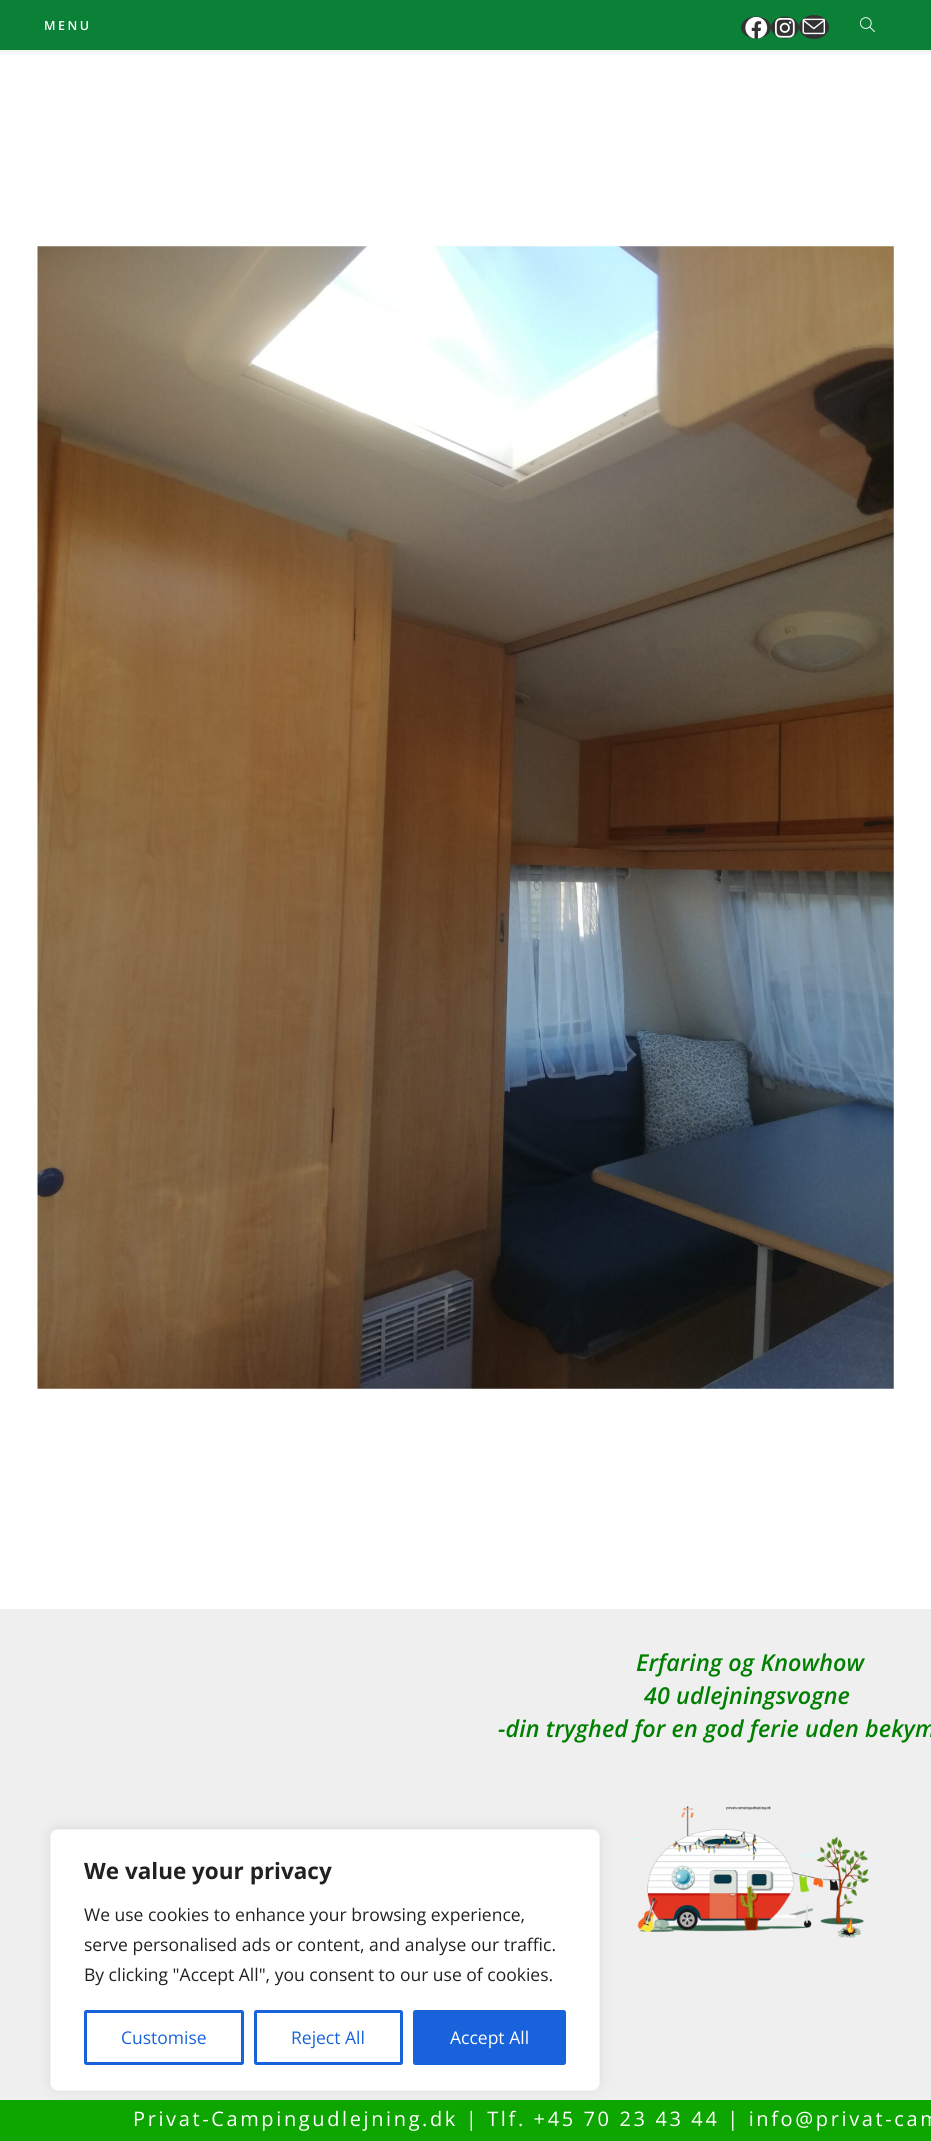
#include <cairo.h>
#include <math.h>
#include <stddef.h>

static cairo_t *ctx;

static void use_color(int r, int g, int b) {
    cairo_set_source_rgb(ctx, r / 255.0, g / 255.0, b / 255.0);
}

static void spaced_text(double x, double y, const char *s, double letter, double word) {
    cairo_move_to(ctx, x, y);
    while (*s) {
        char ch[5] = {0};
        int n = 0;
        do ch[n++] = *s++; while ((*s & 0xC0) == 0x80);
        cairo_show_text(ctx, ch);
        cairo_rel_move_to(ctx, letter + word * (*ch == ' '), 0);
    }
}

static void round_rect(double x, double y, double w, double h, double r) {
    cairo_new_sub_path(ctx);
    cairo_arc(ctx, x + w - r, y + h - r, r, 0, M_PI / 2);
    cairo_arc(ctx, x + r, y + h - r, r, M_PI / 2, M_PI);
    cairo_arc(ctx, x + r, y + r, r, M_PI, 1.5 * M_PI);
    cairo_arc(ctx, x + w - r, y + r, r, 1.5 * M_PI, 2 * M_PI);
    cairo_close_path(ctx);
}

static void shadow(double x, double y, double w, double h, double r, double blur, double alpha) {
    cairo_push_group_with_content(ctx, CAIRO_CONTENT_ALPHA);
    cairo_set_operator(ctx, CAIRO_OPERATOR_SOURCE);
    for (int i = 15; i >= -15 && fmin(w, h) + blur * i / 3 > 0; i -= 2) {
        double e = blur * i / 6;
        cairo_set_source_rgba(ctx, 0, 0, 0, alpha * erfc((i - 1) / 8.5) / 2);
        round_rect(x - e, y - e, w + 2 * e, h + 2 * e, fmax(0, fmin(r + e + blur * .6, fmin(w, h) / 2 + e)));
        cairo_fill(ctx);
    }
    cairo_pattern_t *soft = cairo_pop_group(ctx);
    cairo_mask(ctx, soft);
    cairo_pattern_destroy(soft);
}

static void picture(const char *path, double x, double y, double w, double h) {
    cairo_surface_t *image = cairo_image_surface_create_from_png(path);
    cairo_save(ctx);
    cairo_set_source_surface(ctx, image, x, y);
    cairo_rectangle(ctx, x, y, w, h);
    cairo_fill(ctx);
    cairo_restore(ctx);
    cairo_surface_destroy(image);
}

int main(void) {
    cairo_surface_t *surface = cairo_image_surface_create(CAIRO_FORMAT_RGB24, 931, 2141);
    ctx = cairo_create(surface);
    cairo_font_options_t *options = cairo_font_options_create();
    cairo_font_options_set_hint_metrics(options, CAIRO_HINT_METRICS_OFF);
    cairo_font_options_set_hint_style(options, CAIRO_HINT_STYLE_NONE);
    cairo_set_font_options(ctx, options);
    cairo_set_miter_limit(ctx, 4);
    use_color(255, 255, 255);
    cairo_paint(ctx);
    use_color(0, 0, 0);
    shadow(0, 1, 931, 50, 0, 3, 0.1);
    use_color(10, 129, 54);
    cairo_rectangle(ctx, 0, 0, 931, 50);
    cairo_fill(ctx);
    cairo_select_font_face(ctx, "Open Sans SemiBold", CAIRO_FONT_SLANT_NORMAL, CAIRO_FONT_WEIGHT_NORMAL);
    cairo_set_font_size(ctx, 12.5);
    use_color(255, 255, 255);
    spaced_text(44, 30, "MENU", 2.5, 0);
    use_color(51, 51, 51);
    cairo_new_path(ctx);
    cairo_move_to(ctx, 756, 16.5);
    cairo_curve_to(ctx, 764.5, 16.5, 771, 21.5, 771, 27.5);
    cairo_curve_to(ctx, 771, 33.5, 764.5, 38.5, 756, 38.5);
    cairo_curve_to(ctx, 747.5, 38.5, 741, 33.5, 741, 27.5);
    cairo_curve_to(ctx, 741, 21.5, 747.5, 16.5, 756, 16.5);
    cairo_close_path(ctx);
    cairo_fill(ctx);
    picture("img1.png", 745, 16, 23, 23);
    cairo_new_path(ctx);
    cairo_move_to(ctx, 785, 16.5);
    cairo_curve_to(ctx, 792.5, 16.5, 799, 21.5, 799, 27.5);
    cairo_curve_to(ctx, 799, 33.5, 792.5, 38.5, 785, 38.5);
    cairo_curve_to(ctx, 777.5, 38.5, 771, 33.5, 771, 27.5);
    cairo_curve_to(ctx, 771, 21.5, 777.5, 16.5, 785, 16.5);
    cairo_close_path(ctx);
    cairo_fill(ctx);
    picture("img2.png", 775, 18, 20, 20);
    cairo_new_path(ctx);
    cairo_move_to(ctx, 814, 15);
    cairo_curve_to(ctx, 822.5, 15, 829, 20.5, 829, 27);
    cairo_curve_to(ctx, 829, 33.5, 822.5, 39, 814, 39);
    cairo_curve_to(ctx, 805.5, 39, 799, 33.5, 799, 27);
    cairo_curve_to(ctx, 799, 20.5, 805.5, 15, 814, 15);
    cairo_close_path(ctx);
    cairo_fill(ctx);
    picture("img3.png", 802, 18, 24, 17);
    picture("img4.png", 860, 17, 15, 16);
    picture("img5.png", 37, 246, 857, 1143);
    use_color(239, 239, 239);
    cairo_rectangle(ctx, 0, 1609, 931, 491);
    cairo_fill(ctx);
    cairo_select_font_face(ctx, "Open Sans SemiBold", CAIRO_FONT_SLANT_ITALIC, CAIRO_FONT_WEIGHT_NORMAL);
    cairo_set_font_size(ctx, 23.3);
    use_color(0, 128, 0);
    spaced_text(636, 1671, "Erfaring og Knowhow", 0.1, 0);
    spaced_text(644, 1704, "40 udlejningsvogne", 0.1, 0);
    spaced_text(498, 1737, "-din tryghed for en god ferie uden bekym", 0.1, 0);
    picture("img6.png", 632, 1806, 237, 132);
    use_color(13, 165, 0);
    cairo_rectangle(ctx, 0, 2100, 931, 41);
    cairo_fill(ctx);
    cairo_select_font_face(ctx, "Open Sans", CAIRO_FONT_SLANT_NORMAL, CAIRO_FONT_WEIGHT_NORMAL);
    cairo_set_font_size(ctx, 20);
    use_color(255, 255, 255);
    spaced_text(133, 2126, "Privat-Campingudlejning.dk | Tlf. +45 70 23 43 44 | info@privat-cam", 2.62, 0);
    use_color(172, 171, 171);
    shadow(50, 1828, 550, 262, 8, 6, 0.3);
    use_color(255, 255, 255);
    round_rect(50.5, 1829.5, 549, 261, 7.5);
    cairo_fill_preserve(ctx);
    use_color(244, 244, 244);
    cairo_set_line_width(ctx, 1);
    cairo_stroke(ctx);
    cairo_select_font_face(ctx, "Open Sans", CAIRO_FONT_SLANT_NORMAL, CAIRO_FONT_WEIGHT_BOLD);
    cairo_set_font_size(ctx, 22.5);
    use_color(33, 33, 33);
    cairo_move_to(ctx, 84, 1879);
    cairo_show_text(ctx, "We value your privacy");
    cairo_select_font_face(ctx, "Open Sans", CAIRO_FONT_SLANT_NORMAL, CAIRO_FONT_WEIGHT_NORMAL);
    cairo_set_font_size(ctx, 17.5);
    cairo_move_to(ctx, 84, 1921);
    cairo_show_text(ctx, "We use cookies to enhance your browsing experience,");
    cairo_move_to(ctx, 84, 1951);
    cairo_show_text(ctx, "serve personalised ads or content, and analyse our traffic.");
    cairo_move_to(ctx, 84, 1981);
    cairo_show_text(ctx, "By clicking \"Accept All\", you consent to our use of cookies.");
    round_rect(85.5, 2011.5, 157, 52, 1);
    use_color(24, 99, 220);
    cairo_set_line_width(ctx, 3);
    cairo_stroke(ctx);
    cairo_move_to(ctx, 121, 2044);
    cairo_show_text(ctx, "Customise");
    round_rect(255.5, 2011.5, 146, 52, 1);
    cairo_stroke(ctx);
    cairo_move_to(ctx, 291, 2044);
    cairo_show_text(ctx, "Reject All");
    round_rect(414.5, 2011.5, 150, 52, 1);
    cairo_fill_preserve(ctx);
    cairo_stroke(ctx);
    use_color(255, 255, 255);
    cairo_move_to(ctx, 450, 2044);
    cairo_show_text(ctx, "Accept All");
    cairo_surface_write_to_png(surface, "result.png");
    cairo_font_options_destroy(options);
    cairo_destroy(ctx);
    cairo_surface_destroy(surface);
    return 0;
}
